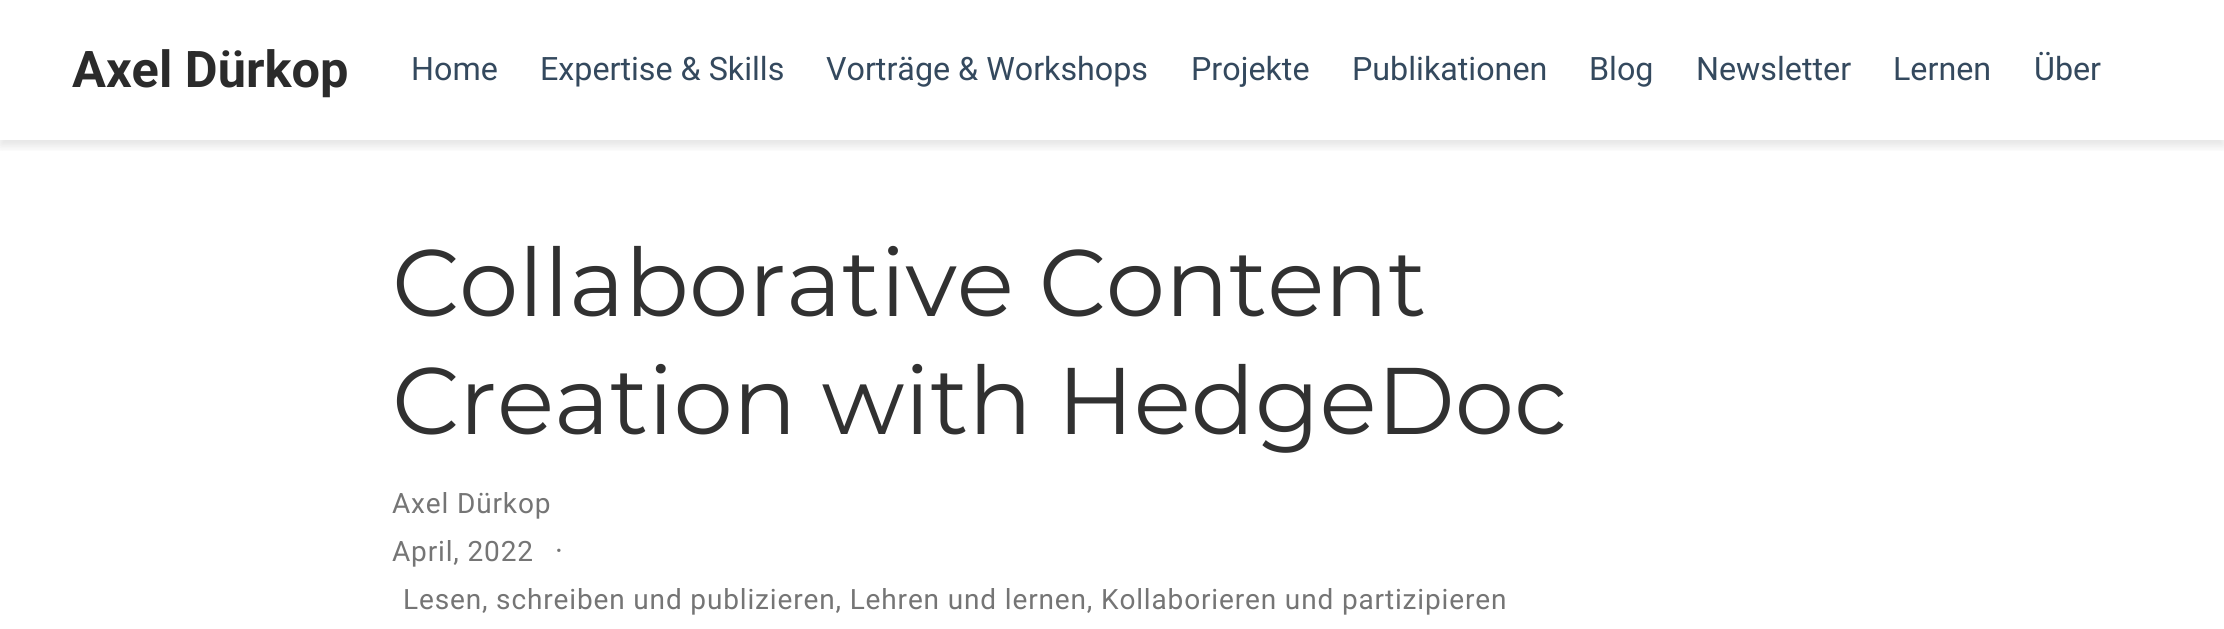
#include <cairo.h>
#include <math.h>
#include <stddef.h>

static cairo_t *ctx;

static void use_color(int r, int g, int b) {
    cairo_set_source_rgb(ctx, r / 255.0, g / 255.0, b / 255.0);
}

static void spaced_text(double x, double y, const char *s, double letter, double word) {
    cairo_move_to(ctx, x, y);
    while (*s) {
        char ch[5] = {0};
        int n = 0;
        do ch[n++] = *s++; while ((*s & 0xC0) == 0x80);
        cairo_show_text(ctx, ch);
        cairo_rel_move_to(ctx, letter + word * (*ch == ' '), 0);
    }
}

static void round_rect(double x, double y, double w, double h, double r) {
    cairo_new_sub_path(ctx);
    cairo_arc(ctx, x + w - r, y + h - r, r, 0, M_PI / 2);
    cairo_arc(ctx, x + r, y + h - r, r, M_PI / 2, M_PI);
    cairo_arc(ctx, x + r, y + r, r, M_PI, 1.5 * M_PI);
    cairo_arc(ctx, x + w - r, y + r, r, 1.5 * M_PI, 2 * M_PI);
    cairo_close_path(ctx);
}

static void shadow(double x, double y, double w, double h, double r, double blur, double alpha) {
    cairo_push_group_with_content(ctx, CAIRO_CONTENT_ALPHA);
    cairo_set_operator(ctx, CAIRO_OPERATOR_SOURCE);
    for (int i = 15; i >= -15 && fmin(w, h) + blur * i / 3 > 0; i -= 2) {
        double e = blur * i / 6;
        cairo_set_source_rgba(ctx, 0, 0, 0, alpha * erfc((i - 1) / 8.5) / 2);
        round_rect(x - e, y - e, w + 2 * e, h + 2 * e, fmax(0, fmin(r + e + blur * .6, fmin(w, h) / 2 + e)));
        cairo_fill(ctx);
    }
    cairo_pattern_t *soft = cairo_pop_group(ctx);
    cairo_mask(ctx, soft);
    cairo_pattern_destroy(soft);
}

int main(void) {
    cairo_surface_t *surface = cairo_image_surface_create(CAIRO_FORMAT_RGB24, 2224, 629);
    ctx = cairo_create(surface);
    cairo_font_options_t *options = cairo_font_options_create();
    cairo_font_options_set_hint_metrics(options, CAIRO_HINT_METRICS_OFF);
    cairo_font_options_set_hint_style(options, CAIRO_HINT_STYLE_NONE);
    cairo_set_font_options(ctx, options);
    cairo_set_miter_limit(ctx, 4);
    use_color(255, 255, 255);
    cairo_paint(ctx);
    cairo_save(ctx);
    cairo_rectangle(ctx, 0, 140, 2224, 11);
    cairo_clip(ctx);
    use_color(0, 0, 0);
    shadow(0, 6, 2224, 140, 0, 5, 0.11);
    cairo_restore(ctx);
    cairo_select_font_face(ctx, "Roboto", CAIRO_FONT_SLANT_NORMAL, CAIRO_FONT_WEIGHT_BOLD);
    cairo_set_font_size(ctx, 50.5);
    use_color(43, 43, 43);
    cairo_move_to(ctx, 72, 87);
    cairo_show_text(ctx, "Axel Dürkop");
    cairo_select_font_face(ctx, "Roboto", CAIRO_FONT_SLANT_NORMAL, CAIRO_FONT_WEIGHT_NORMAL);
    cairo_set_font_size(ctx, 32.25);
    use_color(52, 73, 94);
    cairo_move_to(ctx, 411, 80);
    cairo_show_text(ctx, "Home");
    cairo_move_to(ctx, 540, 80);
    cairo_show_text(ctx, "Expertise & Skills");
    cairo_move_to(ctx, 826, 80);
    cairo_show_text(ctx, "Vorträge & Workshops");
    cairo_move_to(ctx, 1191, 80);
    cairo_show_text(ctx, "Projekte");
    cairo_move_to(ctx, 1352, 80);
    cairo_show_text(ctx, "Publikationen");
    cairo_move_to(ctx, 1589, 80);
    cairo_show_text(ctx, "Blog");
    cairo_move_to(ctx, 1696, 80);
    cairo_show_text(ctx, "Newsletter");
    cairo_move_to(ctx, 1893, 80);
    cairo_show_text(ctx, "Lernen");
    cairo_move_to(ctx, 2034, 80);
    cairo_show_text(ctx, "Über");
    cairo_select_font_face(ctx, "Montserrat", CAIRO_FONT_SLANT_NORMAL, CAIRO_FONT_WEIGHT_NORMAL);
    cairo_set_font_size(ctx, 94.5);
    use_color(49, 49, 49);
    cairo_move_to(ctx, 392, 316);
    cairo_show_text(ctx, "Collaborative Content");
    cairo_move_to(ctx, 392, 434);
    cairo_show_text(ctx, "Creation with HedgeDoc");
    cairo_select_font_face(ctx, "Roboto", CAIRO_FONT_SLANT_NORMAL, CAIRO_FONT_WEIGHT_NORMAL);
    cairo_set_font_size(ctx, 28);
    use_color(117, 117, 117);
    spaced_text(392, 513, "Axel Dürkop", 0.85, 0);
    spaced_text(392, 561, "April, 2022", 0.85, 0);
    cairo_set_font_size(ctx, 30);
    spaced_text(555, 561, "·", 0.85, 0);
    cairo_set_font_size(ctx, 28);
    spaced_text(403, 609, "Lesen, schreiben und publizieren, Lehren und lernen, Kollaborieren und partizipieren", 0.85, 0);
    cairo_surface_write_to_png(surface, "result.png");
    cairo_font_options_destroy(options);
    cairo_destroy(ctx);
    cairo_surface_destroy(surface);
    return 0;
}
